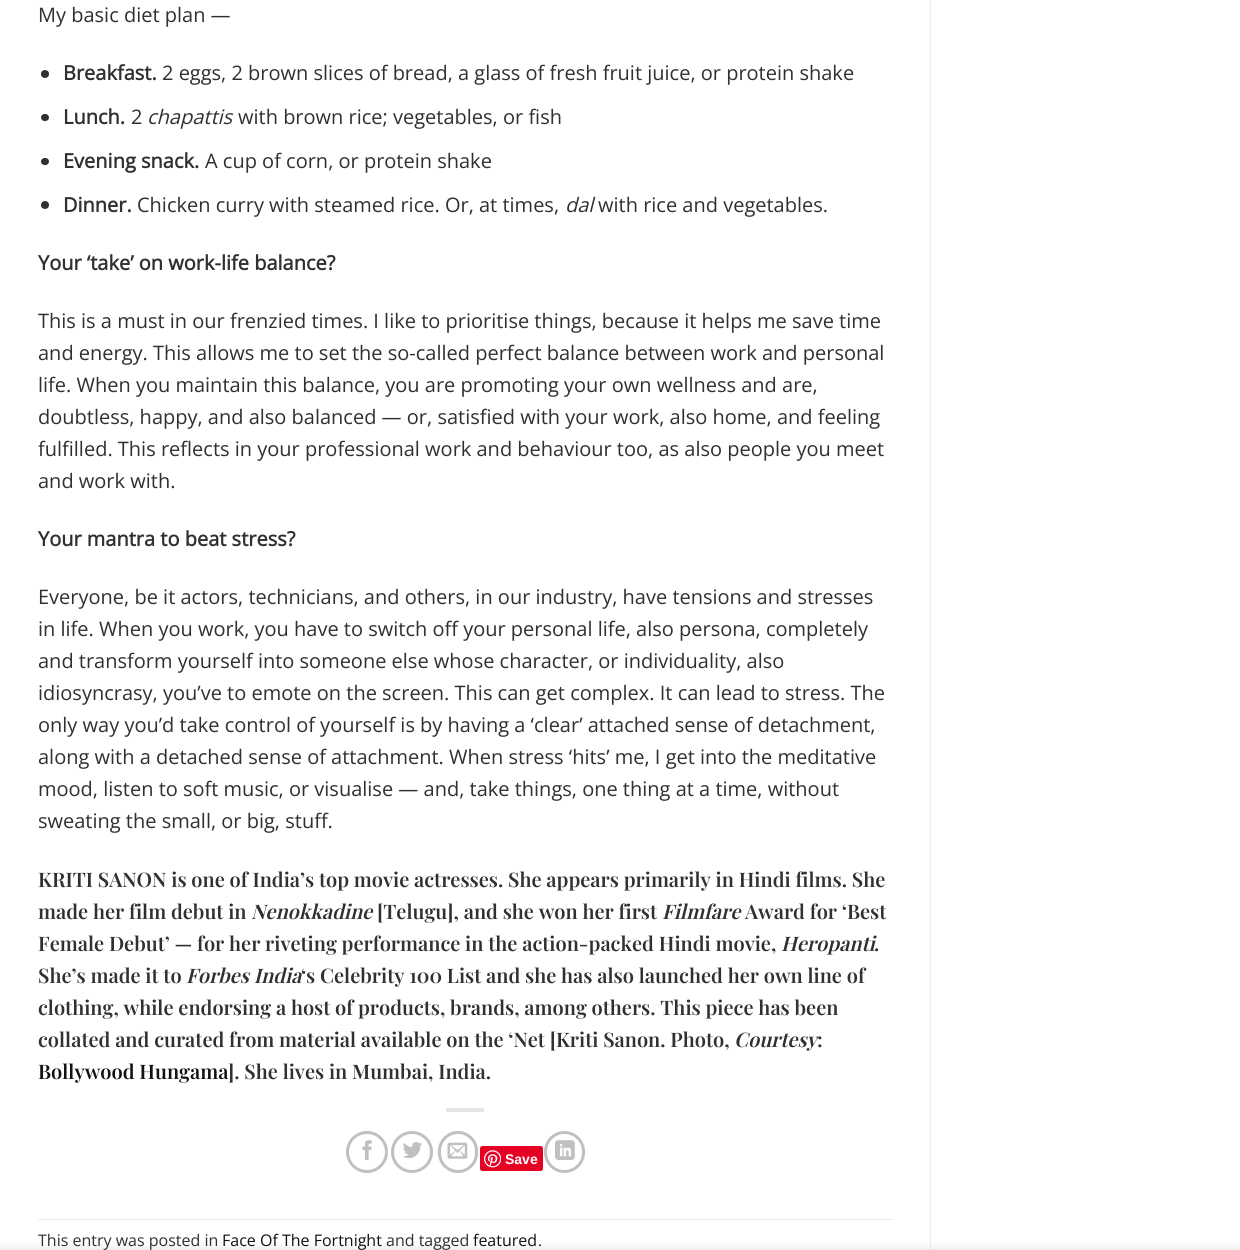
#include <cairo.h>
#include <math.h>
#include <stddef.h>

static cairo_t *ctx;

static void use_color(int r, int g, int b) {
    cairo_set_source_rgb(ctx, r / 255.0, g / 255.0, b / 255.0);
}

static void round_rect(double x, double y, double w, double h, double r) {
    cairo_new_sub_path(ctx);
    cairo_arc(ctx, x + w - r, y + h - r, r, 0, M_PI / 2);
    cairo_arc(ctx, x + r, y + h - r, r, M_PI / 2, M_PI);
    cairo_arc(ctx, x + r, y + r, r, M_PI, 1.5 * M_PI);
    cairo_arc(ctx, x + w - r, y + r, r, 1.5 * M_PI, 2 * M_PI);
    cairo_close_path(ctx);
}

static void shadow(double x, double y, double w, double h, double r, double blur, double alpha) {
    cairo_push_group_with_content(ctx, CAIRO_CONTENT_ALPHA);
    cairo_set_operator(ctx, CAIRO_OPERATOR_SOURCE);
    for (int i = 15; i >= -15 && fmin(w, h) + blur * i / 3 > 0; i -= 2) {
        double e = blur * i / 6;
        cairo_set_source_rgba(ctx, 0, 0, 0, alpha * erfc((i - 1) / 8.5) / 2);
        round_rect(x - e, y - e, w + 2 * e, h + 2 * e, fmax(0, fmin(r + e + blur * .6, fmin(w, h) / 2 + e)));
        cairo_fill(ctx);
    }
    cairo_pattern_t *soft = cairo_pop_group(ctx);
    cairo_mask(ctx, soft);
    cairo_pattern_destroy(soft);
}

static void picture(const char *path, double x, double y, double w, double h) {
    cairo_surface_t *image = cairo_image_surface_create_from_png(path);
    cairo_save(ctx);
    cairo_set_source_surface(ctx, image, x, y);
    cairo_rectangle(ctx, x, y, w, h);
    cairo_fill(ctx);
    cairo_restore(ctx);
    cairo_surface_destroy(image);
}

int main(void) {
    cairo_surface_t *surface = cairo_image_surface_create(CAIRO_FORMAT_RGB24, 1240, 1250);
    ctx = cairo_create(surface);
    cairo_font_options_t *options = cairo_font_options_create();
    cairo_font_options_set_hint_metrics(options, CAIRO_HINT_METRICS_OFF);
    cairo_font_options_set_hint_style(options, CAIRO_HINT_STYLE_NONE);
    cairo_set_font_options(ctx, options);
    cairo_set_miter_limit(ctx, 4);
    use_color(255, 255, 255);
    cairo_paint(ctx);
    cairo_select_font_face(ctx, "Open Sans", CAIRO_FONT_SLANT_NORMAL, CAIRO_FONT_WEIGHT_NORMAL);
    cairo_set_font_size(ctx, 20);
    use_color(48, 48, 48);
    cairo_move_to(ctx, 38, 22);
    cairo_show_text(ctx, "My basic diet plan —");
    cairo_new_path(ctx);
    cairo_arc(ctx, 45, 74, 4, 0, 2 * M_PI);
    cairo_fill(ctx);
    cairo_select_font_face(ctx, "Open Sans", CAIRO_FONT_SLANT_NORMAL, CAIRO_FONT_WEIGHT_BOLD);
    cairo_move_to(ctx, 63, 80);
    cairo_show_text(ctx, "Breakfast.");
    cairo_select_font_face(ctx, "Open Sans", CAIRO_FONT_SLANT_NORMAL, CAIRO_FONT_WEIGHT_NORMAL);
    cairo_move_to(ctx, 162, 80);
    cairo_show_text(ctx, "2 eggs, 2 brown slices of bread, a glass of fresh fruit juice, or protein shake");
    round_rect(41, 114, 8, 7, 3.5);
    cairo_fill(ctx);
    cairo_select_font_face(ctx, "Open Sans", CAIRO_FONT_SLANT_NORMAL, CAIRO_FONT_WEIGHT_BOLD);
    cairo_move_to(ctx, 63, 124);
    cairo_show_text(ctx, "Lunch.");
    cairo_select_font_face(ctx, "Open Sans", CAIRO_FONT_SLANT_NORMAL, CAIRO_FONT_WEIGHT_NORMAL);
    cairo_move_to(ctx, 131, 124);
    cairo_show_text(ctx, "2");
    cairo_select_font_face(ctx, "Open Sans", CAIRO_FONT_SLANT_ITALIC, CAIRO_FONT_WEIGHT_NORMAL);
    cairo_move_to(ctx, 147, 124);
    cairo_show_text(ctx, "chapattis");
    cairo_select_font_face(ctx, "Open Sans", CAIRO_FONT_SLANT_NORMAL, CAIRO_FONT_WEIGHT_NORMAL);
    cairo_move_to(ctx, 238, 124);
    cairo_show_text(ctx, "with brown rice; vegetables, or fish");
    round_rect(41, 158, 8, 7, 3.5);
    cairo_fill(ctx);
    cairo_select_font_face(ctx, "Open Sans", CAIRO_FONT_SLANT_NORMAL, CAIRO_FONT_WEIGHT_BOLD);
    cairo_move_to(ctx, 63, 168);
    cairo_show_text(ctx, "Evening snack.");
    cairo_select_font_face(ctx, "Open Sans", CAIRO_FONT_SLANT_NORMAL, CAIRO_FONT_WEIGHT_NORMAL);
    cairo_move_to(ctx, 205, 168);
    cairo_show_text(ctx, "A cup of corn, or protein shake");
    cairo_new_path(ctx);
    cairo_arc(ctx, 45, 205, 4, 0, 2 * M_PI);
    cairo_fill(ctx);
    cairo_select_font_face(ctx, "Open Sans", CAIRO_FONT_SLANT_NORMAL, CAIRO_FONT_WEIGHT_BOLD);
    cairo_move_to(ctx, 63, 212);
    cairo_show_text(ctx, "Dinner.");
    cairo_select_font_face(ctx, "Open Sans", CAIRO_FONT_SLANT_NORMAL, CAIRO_FONT_WEIGHT_NORMAL);
    cairo_move_to(ctx, 137, 212);
    cairo_show_text(ctx, "Chicken curry with steamed rice. Or, at times,");
    cairo_select_font_face(ctx, "Open Sans", CAIRO_FONT_SLANT_ITALIC, CAIRO_FONT_WEIGHT_NORMAL);
    cairo_move_to(ctx, 565, 212);
    cairo_show_text(ctx, "dal");
    cairo_select_font_face(ctx, "Open Sans", CAIRO_FONT_SLANT_NORMAL, CAIRO_FONT_WEIGHT_NORMAL);
    cairo_move_to(ctx, 598, 212);
    cairo_show_text(ctx, "with rice and vegetables.");
    cairo_select_font_face(ctx, "Open Sans", CAIRO_FONT_SLANT_NORMAL, CAIRO_FONT_WEIGHT_BOLD);
    cairo_move_to(ctx, 38, 270);
    cairo_show_text(ctx, "Your ‘take’ on work-life balance?");
    cairo_select_font_face(ctx, "Open Sans", CAIRO_FONT_SLANT_NORMAL, CAIRO_FONT_WEIGHT_NORMAL);
    cairo_move_to(ctx, 38, 328);
    cairo_show_text(ctx, "This is a must in our frenzied times. I like to prioritise things, because it helps me save time");
    cairo_move_to(ctx, 38, 360);
    cairo_show_text(ctx, "and energy. This allows me to set the so-called perfect balance between work and personal");
    cairo_move_to(ctx, 38, 392);
    cairo_show_text(ctx, "life. When you maintain this balance, you are promoting your own wellness and are,");
    cairo_move_to(ctx, 38, 424);
    cairo_show_text(ctx, "doubtless, happy, and also balanced — or, satisfied with your work, also home, and feeling");
    cairo_move_to(ctx, 38, 456);
    cairo_show_text(ctx, "fulfilled. This reflects in your professional work and behaviour too, as also people you meet");
    cairo_move_to(ctx, 38, 488);
    cairo_show_text(ctx, "and work with.");
    cairo_select_font_face(ctx, "Open Sans", CAIRO_FONT_SLANT_NORMAL, CAIRO_FONT_WEIGHT_BOLD);
    cairo_move_to(ctx, 38, 546);
    cairo_show_text(ctx, "Your mantra to beat stress?");
    cairo_select_font_face(ctx, "Open Sans", CAIRO_FONT_SLANT_NORMAL, CAIRO_FONT_WEIGHT_NORMAL);
    cairo_move_to(ctx, 38, 604);
    cairo_show_text(ctx, "Everyone, be it actors, technicians, and others, in our industry, have tensions and stresses");
    cairo_move_to(ctx, 38, 636);
    cairo_show_text(ctx, "in life. When you work, you have to switch off your personal life, also persona, completely");
    cairo_move_to(ctx, 38, 668);
    cairo_show_text(ctx, "and transform yourself into someone else whose character, or individuality, also");
    cairo_move_to(ctx, 38, 700);
    cairo_show_text(ctx, "idiosyncrasy, you’ve to emote on the screen. This can get complex. It can lead to stress. The");
    cairo_move_to(ctx, 38, 732);
    cairo_show_text(ctx, "only way you’d take control of yourself is by having a ‘clear’ attached sense of detachment,");
    cairo_move_to(ctx, 38, 764);
    cairo_show_text(ctx, "along with a detached sense of attachment. When stress ‘hits’ me, I get into the meditative");
    cairo_move_to(ctx, 38, 796);
    cairo_show_text(ctx, "mood, listen to soft music, or visualise — and, take things, one thing at a time, without");
    cairo_move_to(ctx, 38, 828);
    cairo_show_text(ctx, "sweating the small, or big, stuff.");
    cairo_select_font_face(ctx, "Playfair Display SemiBold", CAIRO_FONT_SLANT_NORMAL, CAIRO_FONT_WEIGHT_NORMAL);
    cairo_move_to(ctx, 38, 887);
    cairo_show_text(ctx, "KRITI SANON is one of India’s top movie actresses. She appears primarily in Hindi films. She");
    cairo_move_to(ctx, 38, 919);
    cairo_show_text(ctx, "made her film debut in");
    cairo_select_font_face(ctx, "Playfair Display SemiBold", CAIRO_FONT_SLANT_ITALIC, CAIRO_FONT_WEIGHT_NORMAL);
    cairo_move_to(ctx, 251, 919);
    cairo_show_text(ctx, "Nenokkadine");
    cairo_select_font_face(ctx, "Playfair Display SemiBold", CAIRO_FONT_SLANT_NORMAL, CAIRO_FONT_WEIGHT_NORMAL);
    cairo_move_to(ctx, 377, 919);
    cairo_show_text(ctx, "[Telugu], and she won her first");
    cairo_select_font_face(ctx, "Playfair Display SemiBold", CAIRO_FONT_SLANT_ITALIC, CAIRO_FONT_WEIGHT_NORMAL);
    cairo_move_to(ctx, 662, 919);
    cairo_show_text(ctx, "Filmfare");
    cairo_select_font_face(ctx, "Playfair Display SemiBold", CAIRO_FONT_SLANT_NORMAL, CAIRO_FONT_WEIGHT_NORMAL);
    cairo_move_to(ctx, 745, 919);
    cairo_show_text(ctx, "Award for ‘Best");
    cairo_move_to(ctx, 38, 951);
    cairo_show_text(ctx, "Female Debut’ — for her riveting performance in the action-packed Hindi movie,");
    cairo_select_font_face(ctx, "Playfair Display SemiBold", CAIRO_FONT_SLANT_ITALIC, CAIRO_FONT_WEIGHT_NORMAL);
    cairo_move_to(ctx, 781, 951);
    cairo_show_text(ctx, "Heropanti");
    cairo_select_font_face(ctx, "Playfair Display SemiBold", CAIRO_FONT_SLANT_NORMAL, CAIRO_FONT_WEIGHT_NORMAL);
    cairo_move_to(ctx, 874, 951);
    cairo_show_text(ctx, ".");
    cairo_move_to(ctx, 38, 983);
    cairo_show_text(ctx, "She’s made it to");
    cairo_select_font_face(ctx, "Playfair Display SemiBold", CAIRO_FONT_SLANT_ITALIC, CAIRO_FONT_WEIGHT_NORMAL);
    cairo_move_to(ctx, 186, 983);
    cairo_show_text(ctx, "Forbes India");
    cairo_select_font_face(ctx, "Playfair Display SemiBold", CAIRO_FONT_SLANT_NORMAL, CAIRO_FONT_WEIGHT_NORMAL);
    cairo_move_to(ctx, 301, 983);
    cairo_show_text(ctx, "‘s Celebrity 100 List and she has also launched her own line of");
    cairo_move_to(ctx, 38, 1015);
    cairo_show_text(ctx, "clothing, while endorsing a host of products, brands, among others. This piece has been");
    cairo_move_to(ctx, 38, 1047);
    cairo_show_text(ctx, "collated and curated from material available on the ‘Net [Kriti Sanon. Photo,");
    cairo_select_font_face(ctx, "Playfair Display SemiBold", CAIRO_FONT_SLANT_ITALIC, CAIRO_FONT_WEIGHT_NORMAL);
    cairo_move_to(ctx, 734, 1047);
    cairo_show_text(ctx, "Courtesy");
    cairo_select_font_face(ctx, "Playfair Display SemiBold", CAIRO_FONT_SLANT_NORMAL, CAIRO_FONT_WEIGHT_NORMAL);
    cairo_move_to(ctx, 817, 1047);
    cairo_show_text(ctx, ":");
    use_color(17, 17, 17);
    cairo_move_to(ctx, 38, 1079);
    cairo_show_text(ctx, "Bollywood Hungama");
    use_color(48, 48, 48);
    cairo_move_to(ctx, 228, 1079);
    cairo_show_text(ctx, "]. She lives in Mumbai, India.");
    use_color(230, 230, 230);
    cairo_rectangle(ctx, 446, 1108, 38, 4);
    cairo_fill(ctx);
    cairo_arc(ctx, 367, 1152, 19.5, 0, 2 * M_PI);
    use_color(192, 192, 192);
    cairo_set_line_width(ctx, 3);
    cairo_stroke(ctx);
    picture("img1.png", 362, 1140, 10, 20);
    cairo_arc(ctx, 412, 1152, 19.5, 0, 2 * M_PI);
    cairo_stroke(ctx);
    picture("img2.png", 403, 1142, 19, 17);
    round_rect(439.5, 1132.5, 37, 39, 18.5);
    cairo_stroke(ctx);
    picture("img3.png", 447, 1142, 21, 17);
    use_color(230, 0, 35);
    round_rect(480, 1146, 63, 25, 2.5);
    cairo_fill(ctx);
    picture("img4.png", 484, 1150, 17, 18);
    cairo_select_font_face(ctx, "Liberation Sans", CAIRO_FONT_SLANT_NORMAL, CAIRO_FONT_WEIGHT_BOLD);
    cairo_set_font_size(ctx, 14);
    use_color(255, 255, 255);
    cairo_move_to(ctx, 505, 1164);
    cairo_show_text(ctx, "Save");
    round_rect(545.5, 1132.5, 38, 39, 19);
    use_color(192, 192, 192);
    cairo_stroke(ctx);
    picture("img5.png", 555, 1140, 20, 20);
    use_color(236, 236, 236);
    cairo_rectangle(ctx, 38, 1219, 855, 1);
    cairo_fill(ctx);
    cairo_select_font_face(ctx, "Open Sans", CAIRO_FONT_SLANT_NORMAL, CAIRO_FONT_WEIGHT_NORMAL);
    cairo_set_font_size(ctx, 16);
    use_color(48, 48, 48);
    cairo_move_to(ctx, 38, 1246);
    cairo_show_text(ctx, "This entry was posted in");
    use_color(17, 17, 17);
    cairo_move_to(ctx, 222, 1246);
    cairo_show_text(ctx, "Face Of The Fortnight");
    use_color(48, 48, 48);
    cairo_move_to(ctx, 386, 1246);
    cairo_show_text(ctx, "and tagged");
    use_color(17, 17, 17);
    cairo_move_to(ctx, 473, 1246);
    cairo_show_text(ctx, "featured");
    use_color(48, 48, 48);
    cairo_move_to(ctx, 538, 1246);
    cairo_show_text(ctx, ".");
    use_color(236, 236, 236);
    cairo_rectangle(ctx, 930, 0, 1, 1250);
    cairo_fill(ctx);
    use_color(0, 0, 0);
    shadow(0, 1250, 1240, 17, 0, 5.5, 0.14);
    cairo_surface_write_to_png(surface, "result.png");
    cairo_font_options_destroy(options);
    cairo_destroy(ctx);
    cairo_surface_destroy(surface);
    return 0;
}
